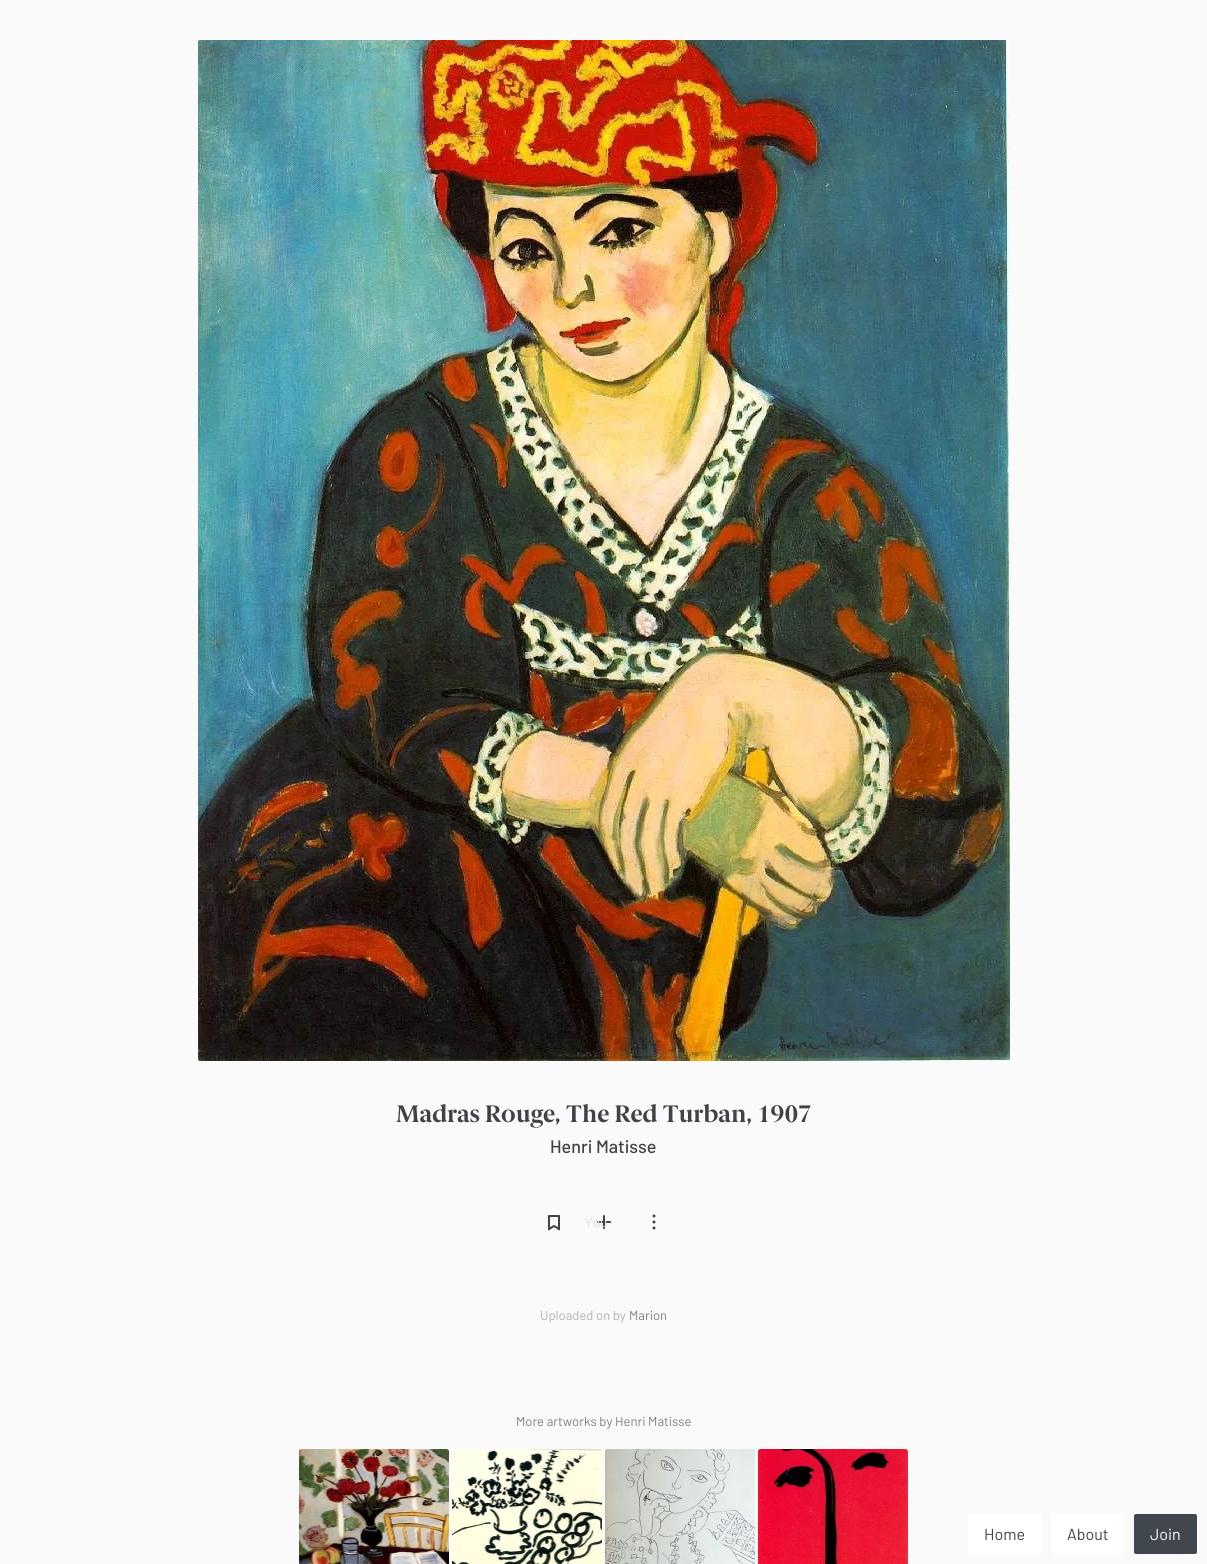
#include <cairo.h>
#include <math.h>
#include <stddef.h>

static cairo_t *ctx;

static void use_color(int r, int g, int b) {
    cairo_set_source_rgb(ctx, r / 255.0, g / 255.0, b / 255.0);
}

static void round_rect(double x, double y, double w, double h, double r) {
    cairo_new_sub_path(ctx);
    cairo_arc(ctx, x + w - r, y + h - r, r, 0, M_PI / 2);
    cairo_arc(ctx, x + r, y + h - r, r, M_PI / 2, M_PI);
    cairo_arc(ctx, x + r, y + r, r, M_PI, 1.5 * M_PI);
    cairo_arc(ctx, x + w - r, y + r, r, 1.5 * M_PI, 2 * M_PI);
    cairo_close_path(ctx);
}

static void picture(const char *path, double x, double y, double w, double h) {
    cairo_surface_t *image = cairo_image_surface_create_from_png(path);
    cairo_save(ctx);
    cairo_set_source_surface(ctx, image, x, y);
    cairo_rectangle(ctx, x, y, w, h);
    cairo_fill(ctx);
    cairo_restore(ctx);
    cairo_surface_destroy(image);
}

int main(void) {
    cairo_surface_t *surface = cairo_image_surface_create(CAIRO_FORMAT_RGB24, 1207, 1564);
    ctx = cairo_create(surface);
    cairo_font_options_t *options = cairo_font_options_create();
    cairo_font_options_set_hint_metrics(options, CAIRO_HINT_METRICS_OFF);
    cairo_font_options_set_hint_style(options, CAIRO_HINT_STYLE_NONE);
    cairo_set_font_options(ctx, options);
    cairo_set_miter_limit(ctx, 4);
    use_color(250, 250, 250);
    cairo_paint(ctx);
    picture("img1.png", 198, 40, 812, 1021);
    cairo_select_font_face(ctx, "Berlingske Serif", CAIRO_FONT_SLANT_NORMAL, CAIRO_FONT_WEIGHT_BOLD);
    cairo_set_font_size(ctx, 24);
    use_color(63, 66, 70);
    cairo_move_to(ctx, 396, 1122);
    cairo_show_text(ctx, "Madras Rouge, The Red Turban, 1907");
    cairo_select_font_face(ctx, "Barlow Medium", CAIRO_FONT_SLANT_NORMAL, CAIRO_FONT_WEIGHT_NORMAL);
    cairo_set_font_size(ctx, 18);
    cairo_move_to(ctx, 550, 1153);
    cairo_show_text(ctx, "Henri Matisse");
    picture("img2.png", 548, 1215, 12, 16);
    picture("img3.png", 597, 1215, 14, 14);
    cairo_select_font_face(ctx, "Liberation Sans", CAIRO_FONT_SLANT_NORMAL, CAIRO_FONT_WEIGHT_NORMAL);
    cairo_set_font_size(ctx, 13);
    use_color(223, 224, 224);
    cairo_move_to(ctx, 584, 1227);
    cairo_show_text(ctx, "You");
    picture("img4.png", 652, 1214, 4, 16);
    cairo_select_font_face(ctx, "Barlow", CAIRO_FONT_SLANT_NORMAL, CAIRO_FONT_WEIGHT_NORMAL);
    use_color(175, 177, 178);
    cairo_move_to(ctx, 540, 1320);
    cairo_show_text(ctx, "Uploaded on by");
    use_color(125, 128, 130);
    cairo_move_to(ctx, 629, 1320);
    cairo_show_text(ctx, "Marion");
    cairo_move_to(ctx, 516, 1426);
    cairo_show_text(ctx, "More artworks by Henri Matisse");
    picture("img5.png", 299, 1449, 150, 115);
    picture("img6.png", 452, 1449, 150, 115);
    picture("img7.png", 605, 1449, 150, 115);
    picture("img8.png", 758, 1449, 150, 115);
    use_color(255, 255, 255);
    round_rect(968, 1514, 73, 40, 2);
    cairo_fill(ctx);
    cairo_set_font_size(ctx, 16);
    use_color(63, 66, 70);
    cairo_move_to(ctx, 984, 1540);
    cairo_show_text(ctx, "Home");
    use_color(255, 255, 255);
    round_rect(1051, 1514, 73, 40, 2);
    cairo_fill(ctx);
    use_color(63, 66, 70);
    cairo_move_to(ctx, 1067, 1540);
    cairo_show_text(ctx, "About");
    use_color(64, 71, 79);
    round_rect(1134, 1514, 63, 40, 2);
    cairo_fill(ctx);
    use_color(255, 255, 255);
    cairo_move_to(ctx, 1150, 1540);
    cairo_show_text(ctx, "Join");
    cairo_surface_write_to_png(surface, "result.png");
    cairo_font_options_destroy(options);
    cairo_destroy(ctx);
    cairo_surface_destroy(surface);
    return 0;
}
